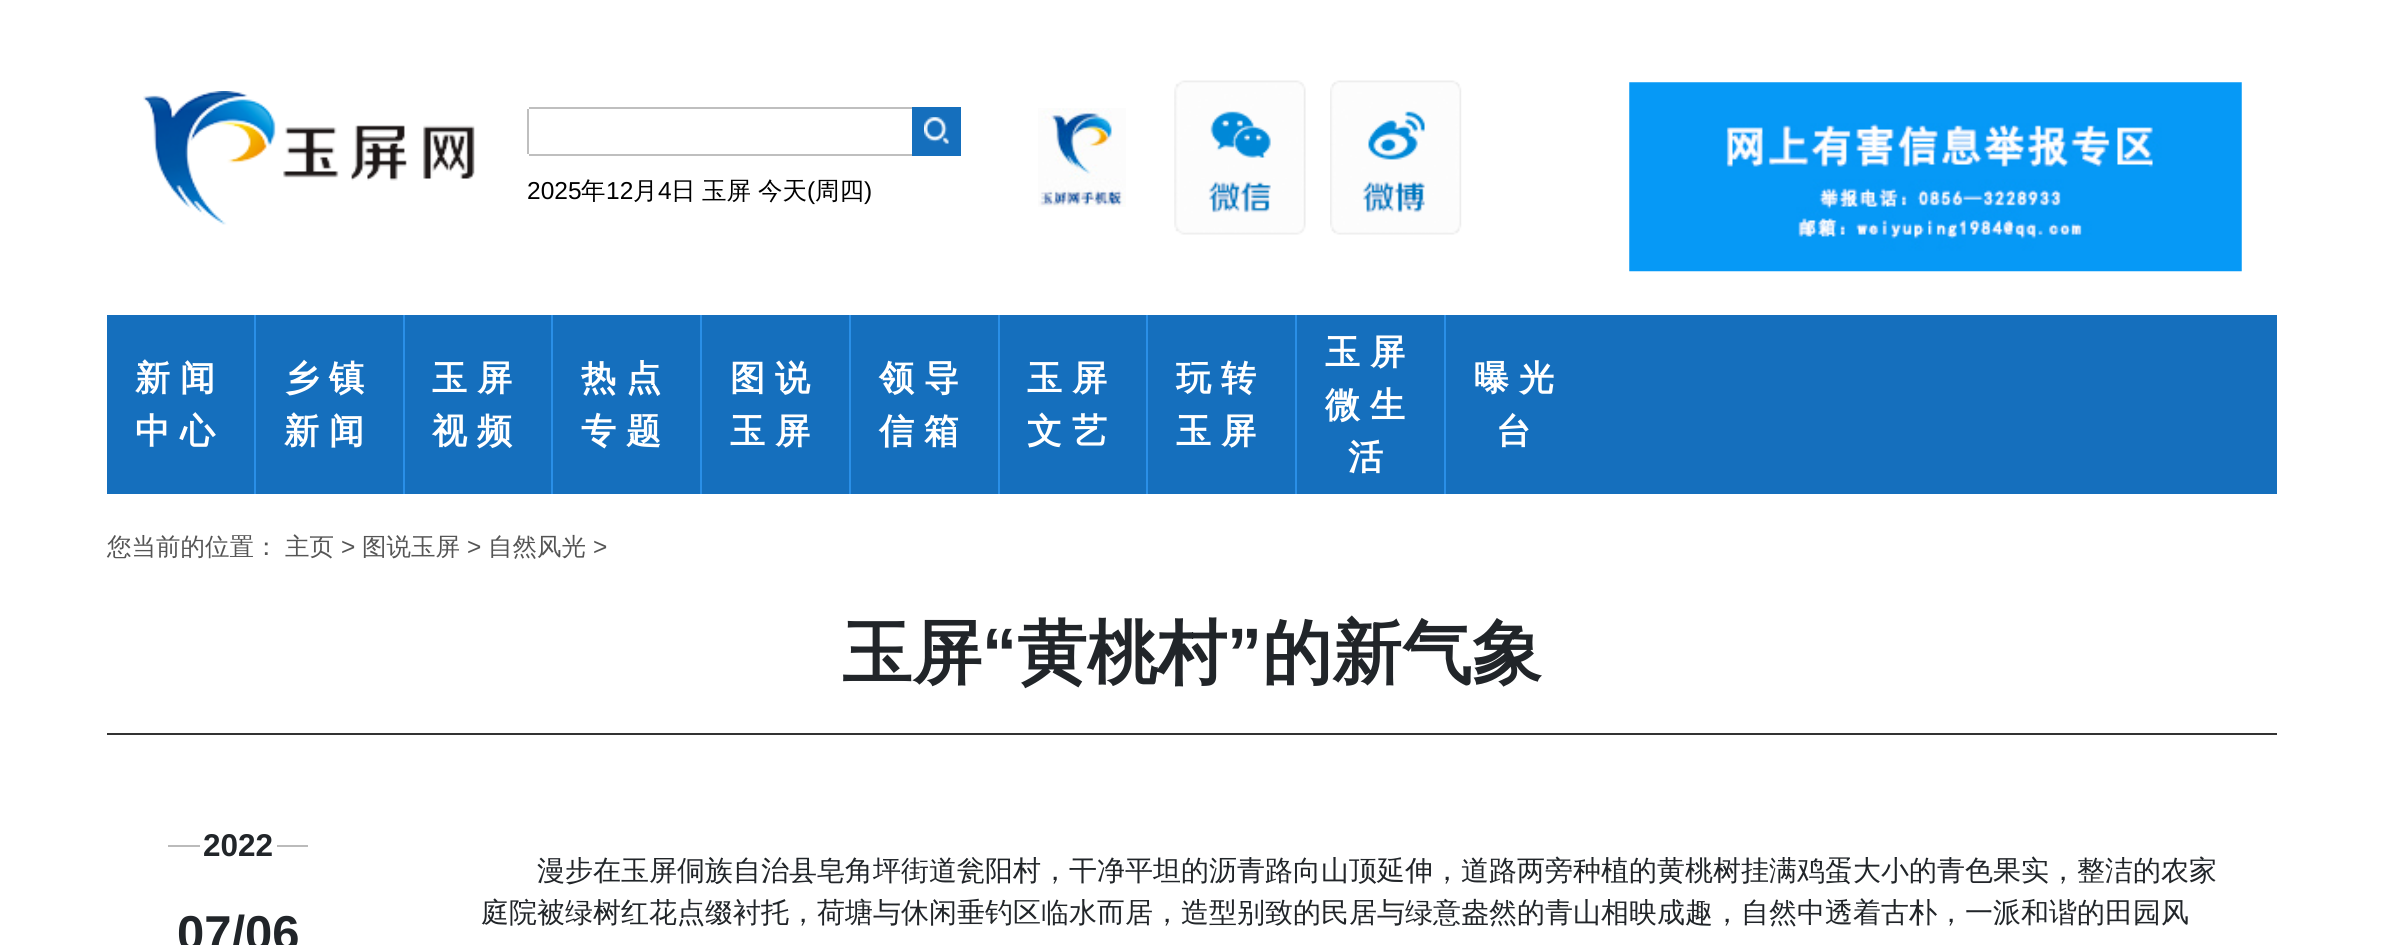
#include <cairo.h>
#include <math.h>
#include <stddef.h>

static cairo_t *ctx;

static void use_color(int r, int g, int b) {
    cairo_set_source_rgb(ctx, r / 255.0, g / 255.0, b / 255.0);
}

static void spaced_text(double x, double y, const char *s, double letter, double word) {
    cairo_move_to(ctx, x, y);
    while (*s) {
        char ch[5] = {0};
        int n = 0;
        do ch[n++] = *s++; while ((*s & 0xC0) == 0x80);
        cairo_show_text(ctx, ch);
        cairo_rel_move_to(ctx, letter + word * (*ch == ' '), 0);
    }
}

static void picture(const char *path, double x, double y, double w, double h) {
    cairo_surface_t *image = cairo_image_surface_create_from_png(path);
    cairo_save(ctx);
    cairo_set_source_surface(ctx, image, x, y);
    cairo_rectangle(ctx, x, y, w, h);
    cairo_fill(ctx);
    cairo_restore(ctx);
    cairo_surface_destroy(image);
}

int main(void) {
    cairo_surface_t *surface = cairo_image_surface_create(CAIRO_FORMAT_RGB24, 2382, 945);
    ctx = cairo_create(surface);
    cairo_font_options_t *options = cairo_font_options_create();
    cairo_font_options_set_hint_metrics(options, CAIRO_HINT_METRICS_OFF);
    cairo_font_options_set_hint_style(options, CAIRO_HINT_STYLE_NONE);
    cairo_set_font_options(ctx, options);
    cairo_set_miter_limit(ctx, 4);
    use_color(255, 255, 255);
    cairo_paint(ctx);
    picture("img1.png", 143, 91, 332, 134);
    use_color(191, 191, 191);
    cairo_rectangle(ctx, 529, 107, 383, 2);
    cairo_fill(ctx);
    cairo_rectangle(ctx, 529, 154, 383, 2);
    cairo_fill(ctx);
    cairo_rectangle(ctx, 527, 109, 2, 45);
    cairo_fill(ctx);
    use_color(21, 111, 189);
    cairo_rectangle(ctx, 912, 107, 49, 49);
    cairo_fill(ctx);
    picture("img2.png", 924, 117, 25, 27);
    cairo_select_font_face(ctx, "Liberation Sans", CAIRO_FONT_SLANT_NORMAL, CAIRO_FONT_WEIGHT_NORMAL);
    cairo_set_font_size(ctx, 24.5);
    use_color(0, 0, 0);
    cairo_move_to(ctx, 527, 199);
    cairo_show_text(ctx, "2025");
    cairo_select_font_face(ctx, "WenQuanYi Zen Hei Medium", CAIRO_FONT_SLANT_NORMAL, CAIRO_FONT_WEIGHT_NORMAL);
    cairo_move_to(ctx, 581, 199);
    cairo_show_text(ctx, "年");
    cairo_select_font_face(ctx, "Liberation Sans", CAIRO_FONT_SLANT_NORMAL, CAIRO_FONT_WEIGHT_NORMAL);
    cairo_move_to(ctx, 606, 199);
    cairo_show_text(ctx, "12");
    cairo_select_font_face(ctx, "WenQuanYi Zen Hei Medium", CAIRO_FONT_SLANT_NORMAL, CAIRO_FONT_WEIGHT_NORMAL);
    cairo_move_to(ctx, 633, 199);
    cairo_show_text(ctx, "月");
    cairo_select_font_face(ctx, "Liberation Sans", CAIRO_FONT_SLANT_NORMAL, CAIRO_FONT_WEIGHT_NORMAL);
    cairo_move_to(ctx, 658, 199);
    cairo_show_text(ctx, "4");
    cairo_select_font_face(ctx, "WenQuanYi Zen Hei Medium", CAIRO_FONT_SLANT_NORMAL, CAIRO_FONT_WEIGHT_NORMAL);
    cairo_move_to(ctx, 671, 199);
    cairo_show_text(ctx, "日");
    cairo_move_to(ctx, 702, 199);
    cairo_show_text(ctx, "玉屏");
    cairo_move_to(ctx, 758, 199);
    cairo_show_text(ctx, "今天");
    cairo_select_font_face(ctx, "Liberation Sans", CAIRO_FONT_SLANT_NORMAL, CAIRO_FONT_WEIGHT_NORMAL);
    cairo_move_to(ctx, 807, 199);
    cairo_show_text(ctx, "(");
    cairo_select_font_face(ctx, "WenQuanYi Zen Hei Medium", CAIRO_FONT_SLANT_NORMAL, CAIRO_FONT_WEIGHT_NORMAL);
    cairo_move_to(ctx, 815, 199);
    cairo_show_text(ctx, "周四");
    cairo_select_font_face(ctx, "Liberation Sans", CAIRO_FONT_SLANT_NORMAL, CAIRO_FONT_WEIGHT_NORMAL);
    cairo_move_to(ctx, 864, 199);
    cairo_show_text(ctx, ")");
    picture("img3.png", 1038, 108, 88, 99);
    picture("img4.png", 1174, 80, 132, 155);
    picture("img5.png", 1330, 80, 132, 155);
    picture("img6.png", 1629, 82, 613, 190);
    use_color(21, 111, 189);
    cairo_rectangle(ctx, 107, 315, 2170, 179);
    cairo_fill(ctx);
    use_color(42, 143, 231);
    cairo_rectangle(ctx, 254, 315, 2, 179);
    cairo_fill(ctx);
    cairo_select_font_face(ctx, "WenQuanYi Zen Hei", CAIRO_FONT_SLANT_NORMAL, CAIRO_FONT_WEIGHT_BOLD);
    cairo_set_font_size(ctx, 35);
    use_color(255, 255, 255);
    spaced_text(135, 390, "新闻", 10, 0);
    spaced_text(135, 443, "中心", 10, 0);
    use_color(42, 143, 231);
    cairo_rectangle(ctx, 403, 315, 2, 179);
    cairo_fill(ctx);
    use_color(255, 255, 255);
    spaced_text(284, 390, "乡镇", 10, 0);
    spaced_text(284, 443, "新闻", 10, 0);
    use_color(42, 143, 231);
    cairo_rectangle(ctx, 551, 315, 2, 179);
    cairo_fill(ctx);
    use_color(255, 255, 255);
    spaced_text(432, 390, "玉屏", 10, 0);
    spaced_text(432, 443, "视频", 10, 0);
    use_color(42, 143, 231);
    cairo_rectangle(ctx, 700, 315, 2, 179);
    cairo_fill(ctx);
    use_color(255, 255, 255);
    spaced_text(581, 390, "热点", 10, 0);
    spaced_text(581, 443, "专题", 10, 0);
    use_color(42, 143, 231);
    cairo_rectangle(ctx, 849, 315, 2, 179);
    cairo_fill(ctx);
    use_color(255, 255, 255);
    spaced_text(730, 390, "图说", 10, 0);
    spaced_text(730, 443, "玉屏", 10, 0);
    use_color(42, 143, 231);
    cairo_rectangle(ctx, 998, 315, 2, 179);
    cairo_fill(ctx);
    use_color(255, 255, 255);
    spaced_text(879, 390, "领导", 10, 0);
    spaced_text(879, 443, "信箱", 10, 0);
    use_color(42, 143, 231);
    cairo_rectangle(ctx, 1146, 315, 2, 179);
    cairo_fill(ctx);
    use_color(255, 255, 255);
    spaced_text(1027, 390, "玉屏", 10, 0);
    spaced_text(1027, 443, "文艺", 10, 0);
    use_color(42, 143, 231);
    cairo_rectangle(ctx, 1295, 315, 2, 179);
    cairo_fill(ctx);
    use_color(255, 255, 255);
    spaced_text(1176, 390, "玩转", 10, 0);
    spaced_text(1176, 443, "玉屏", 10, 0);
    use_color(42, 143, 231);
    cairo_rectangle(ctx, 1444, 315, 2, 179);
    cairo_fill(ctx);
    use_color(255, 255, 255);
    spaced_text(1325, 364, "玉屏", 10, 0);
    spaced_text(1325, 417, "微生", 10, 0);
    spaced_text(1348, 469, "活", 10, 0);
    spaced_text(1474, 390, "曝光", 10, 0);
    spaced_text(1496, 443, "台", 10, 0);
    cairo_select_font_face(ctx, "WenQuanYi Zen Hei Medium", CAIRO_FONT_SLANT_NORMAL, CAIRO_FONT_WEIGHT_NORMAL);
    cairo_set_font_size(ctx, 24.5);
    use_color(85, 85, 85);
    cairo_move_to(ctx, 107, 555);
    cairo_show_text(ctx, "您当前的位置：");
    cairo_move_to(ctx, 285, 555);
    cairo_show_text(ctx, "主页");
    cairo_select_font_face(ctx, "Liberation Sans", CAIRO_FONT_SLANT_NORMAL, CAIRO_FONT_WEIGHT_NORMAL);
    cairo_move_to(ctx, 341, 555);
    cairo_show_text(ctx, ">");
    cairo_select_font_face(ctx, "WenQuanYi Zen Hei Medium", CAIRO_FONT_SLANT_NORMAL, CAIRO_FONT_WEIGHT_NORMAL);
    cairo_move_to(ctx, 362, 555);
    cairo_show_text(ctx, "图说玉屏");
    cairo_select_font_face(ctx, "Liberation Sans", CAIRO_FONT_SLANT_NORMAL, CAIRO_FONT_WEIGHT_NORMAL);
    cairo_move_to(ctx, 467, 555);
    cairo_show_text(ctx, ">");
    cairo_select_font_face(ctx, "WenQuanYi Zen Hei Medium", CAIRO_FONT_SLANT_NORMAL, CAIRO_FONT_WEIGHT_NORMAL);
    cairo_move_to(ctx, 488, 555);
    cairo_show_text(ctx, "自然风光");
    cairo_select_font_face(ctx, "Liberation Sans", CAIRO_FONT_SLANT_NORMAL, CAIRO_FONT_WEIGHT_NORMAL);
    cairo_move_to(ctx, 593, 555);
    cairo_show_text(ctx, ">");
    use_color(51, 51, 51);
    cairo_rectangle(ctx, 107, 733, 2170, 2);
    cairo_fill(ctx);
    cairo_select_font_face(ctx, "WenQuanYi Zen Hei", CAIRO_FONT_SLANT_NORMAL, CAIRO_FONT_WEIGHT_BOLD);
    cairo_set_font_size(ctx, 70);
    use_color(33, 37, 41);
    cairo_move_to(ctx, 842, 677);
    cairo_show_text(ctx, "玉屏");
    cairo_select_font_face(ctx, "Liberation Sans", CAIRO_FONT_SLANT_NORMAL, CAIRO_FONT_WEIGHT_BOLD);
    cairo_move_to(ctx, 982, 677);
    cairo_show_text(ctx, "“");
    cairo_select_font_face(ctx, "WenQuanYi Zen Hei", CAIRO_FONT_SLANT_NORMAL, CAIRO_FONT_WEIGHT_BOLD);
    cairo_move_to(ctx, 1017, 677);
    cairo_show_text(ctx, "黄桃村");
    cairo_select_font_face(ctx, "Liberation Sans", CAIRO_FONT_SLANT_NORMAL, CAIRO_FONT_WEIGHT_BOLD);
    cairo_move_to(ctx, 1227, 677);
    cairo_show_text(ctx, "”");
    cairo_select_font_face(ctx, "WenQuanYi Zen Hei", CAIRO_FONT_SLANT_NORMAL, CAIRO_FONT_WEIGHT_BOLD);
    cairo_move_to(ctx, 1262, 677);
    cairo_show_text(ctx, "的新气象");
    use_color(187, 187, 187);
    cairo_rectangle(ctx, 168, 845, 32, 2);
    cairo_fill(ctx);
    cairo_select_font_face(ctx, "Liberation Sans", CAIRO_FONT_SLANT_NORMAL, CAIRO_FONT_WEIGHT_BOLD);
    cairo_set_font_size(ctx, 31.5);
    use_color(33, 37, 41);
    cairo_move_to(ctx, 203, 856);
    cairo_show_text(ctx, "2022");
    use_color(187, 187, 187);
    cairo_rectangle(ctx, 277, 845, 31, 2);
    cairo_fill(ctx);
    cairo_set_font_size(ctx, 49);
    use_color(33, 37, 41);
    cairo_move_to(ctx, 177, 950);
    cairo_show_text(ctx, "07/06");
    cairo_select_font_face(ctx, "WenQuanYi Zen Hei Medium", CAIRO_FONT_SLANT_NORMAL, CAIRO_FONT_WEIGHT_NORMAL);
    cairo_set_font_size(ctx, 28);
    cairo_move_to(ctx, 537, 880);
    cairo_show_text(ctx, "漫步在玉屏侗族自治县皂角坪街道瓮阳村，干净平坦的沥青路向山顶延伸，道路两旁种植的黄桃树挂满鸡蛋大小的青色果实，整洁的农家");
    cairo_move_to(ctx, 481, 922);
    cairo_show_text(ctx, "庭院被绿树红花点缀衬托，荷塘与休闲垂钓区临水而居，造型别致的民居与绿意盎然的青山相映成趣，自然中透着古朴，一派和谐的田园风");
    cairo_surface_write_to_png(surface, "result.png");
    cairo_font_options_destroy(options);
    cairo_destroy(ctx);
    cairo_surface_destroy(surface);
    return 0;
}
